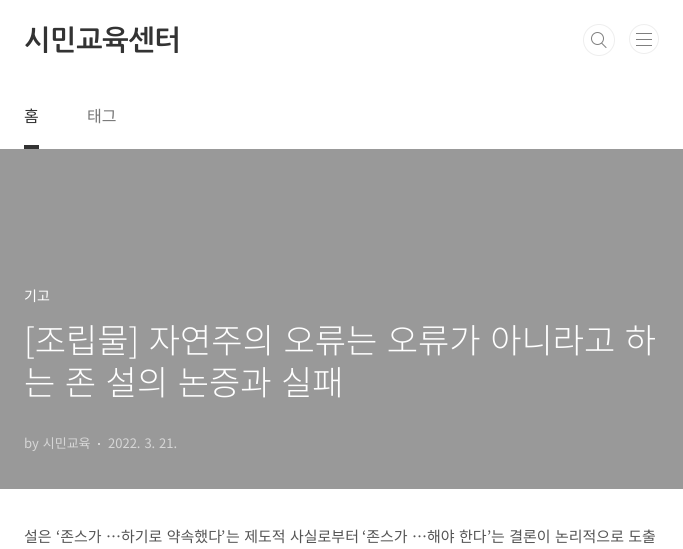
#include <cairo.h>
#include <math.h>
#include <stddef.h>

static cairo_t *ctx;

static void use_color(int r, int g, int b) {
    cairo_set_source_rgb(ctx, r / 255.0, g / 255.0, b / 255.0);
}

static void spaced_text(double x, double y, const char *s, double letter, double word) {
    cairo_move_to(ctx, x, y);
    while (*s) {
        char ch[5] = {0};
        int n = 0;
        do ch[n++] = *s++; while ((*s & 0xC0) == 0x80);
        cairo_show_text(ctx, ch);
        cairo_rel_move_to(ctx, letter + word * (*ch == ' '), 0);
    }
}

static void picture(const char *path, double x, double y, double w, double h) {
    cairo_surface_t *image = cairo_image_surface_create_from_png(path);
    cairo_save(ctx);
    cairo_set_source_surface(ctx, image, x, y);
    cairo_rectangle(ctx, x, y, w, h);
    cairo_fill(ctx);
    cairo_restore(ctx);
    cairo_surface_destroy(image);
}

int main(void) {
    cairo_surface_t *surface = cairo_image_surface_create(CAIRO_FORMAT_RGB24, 683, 549);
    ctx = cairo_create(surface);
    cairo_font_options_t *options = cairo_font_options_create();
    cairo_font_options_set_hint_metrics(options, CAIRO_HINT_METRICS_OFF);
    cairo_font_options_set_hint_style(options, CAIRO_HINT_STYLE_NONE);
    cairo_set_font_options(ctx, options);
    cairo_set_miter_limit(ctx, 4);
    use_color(255, 255, 255);
    cairo_paint(ctx);
    cairo_select_font_face(ctx, "NanumGothic", CAIRO_FONT_SLANT_NORMAL, CAIRO_FONT_WEIGHT_BOLD);
    cairo_set_font_size(ctx, 28);
    use_color(51, 51, 51);
    spaced_text(24, 50, "시민교육센터", -0.25, 0);
    cairo_new_path(ctx);
    cairo_arc(ctx, 599, 40, 14.5, 0, 2 * M_PI);
    use_color(238, 238, 238);
    cairo_set_line_width(ctx, 1);
    cairo_stroke(ctx);
    use_color(255, 255, 255);
    cairo_arc(ctx, 599, 40, 16, 0, 2 * M_PI);
    cairo_fill(ctx);
    picture("img1.png", 591, 32, 16, 16);
    cairo_arc(ctx, 599, 40, 15.5, 0, 2 * M_PI);
    use_color(238, 238, 238);
    cairo_stroke(ctx);
    cairo_arc(ctx, 644, 39, 14.5, 0, 2 * M_PI);
    cairo_stroke(ctx);
    use_color(127, 127, 127);
    cairo_rectangle(ctx, 636, 33, 16, 1);
    cairo_fill(ctx);
    cairo_rectangle(ctx, 636, 39, 16, 1);
    cairo_fill(ctx);
    cairo_rectangle(ctx, 636, 45, 16, 1);
    cairo_fill(ctx);
    cairo_select_font_face(ctx, "Noto Sans KR", CAIRO_FONT_SLANT_NORMAL, CAIRO_FONT_WEIGHT_NORMAL);
    cairo_set_font_size(ctx, 16);
    use_color(51, 51, 51);
    cairo_move_to(ctx, 24, 122);
    cairo_show_text(ctx, "홈");
    cairo_rectangle(ctx, 24, 145, 15, 4);
    cairo_fill(ctx);
    use_color(119, 119, 119);
    cairo_move_to(ctx, 87, 122);
    cairo_show_text(ctx, "태그");
    use_color(153, 153, 153);
    cairo_rectangle(ctx, 0, 149, 683, 340);
    cairo_fill(ctx);
    cairo_set_font_size(ctx, 14);
    use_color(255, 255, 255);
    cairo_move_to(ctx, 24, 301);
    cairo_show_text(ctx, "기고");
    cairo_select_font_face(ctx, "Noto Sans KR Light", CAIRO_FONT_SLANT_NORMAL, CAIRO_FONT_WEIGHT_NORMAL);
    cairo_set_font_size(ctx, 34);
    spaced_text(24, 353, "[조립물] 자연주의 오류는 오류가 아니라고 하", 0, 2);
    spaced_text(24, 395, "는 존 설의 논증과 실패", 0, 2);
    cairo_select_font_face(ctx, "Noto Sans KR", CAIRO_FONT_SLANT_NORMAL, CAIRO_FONT_WEIGHT_NORMAL);
    cairo_set_font_size(ctx, 13);
    use_color(214, 214, 214);
    spaced_text(24, 448, "by 시민교육", 0, 1);
    cairo_rectangle(ctx, 98, 443, 2, 2);
    cairo_fill(ctx);
    spaced_text(108, 448, "2022. 3. 21.", 0, 1);
    cairo_set_font_size(ctx, 15);
    use_color(85, 85, 85);
    cairo_move_to(ctx, 24, 542);
    cairo_show_text(ctx, "설은");
    cairo_move_to(ctx, 56, 542);
    cairo_show_text(ctx, "‘존스가");
    spaced_text(121, 542, "하기로 약속했다", 0, 1);
    cairo_move_to(ctx, 221, 542);
    cairo_show_text(ctx, "’");
    spaced_text(226, 542, "는 제도적 사실로부터", 0, 1);
    cairo_move_to(ctx, 362, 542);
    cairo_show_text(ctx, "‘존스가");
    spaced_text(427, 542, "해야 한다", 0, 1);
    cairo_move_to(ctx, 487, 542);
    cairo_show_text(ctx, "’");
    spaced_text(491, 542, "는 결론이 논리적으로 도출", 0, 1);
    cairo_move_to(ctx, 106, 542);
    cairo_show_text(ctx, "…");
    cairo_move_to(ctx, 412, 542);
    cairo_show_text(ctx, "…");
    cairo_surface_write_to_png(surface, "result.png");
    cairo_font_options_destroy(options);
    cairo_destroy(ctx);
    cairo_surface_destroy(surface);
    return 0;
}
